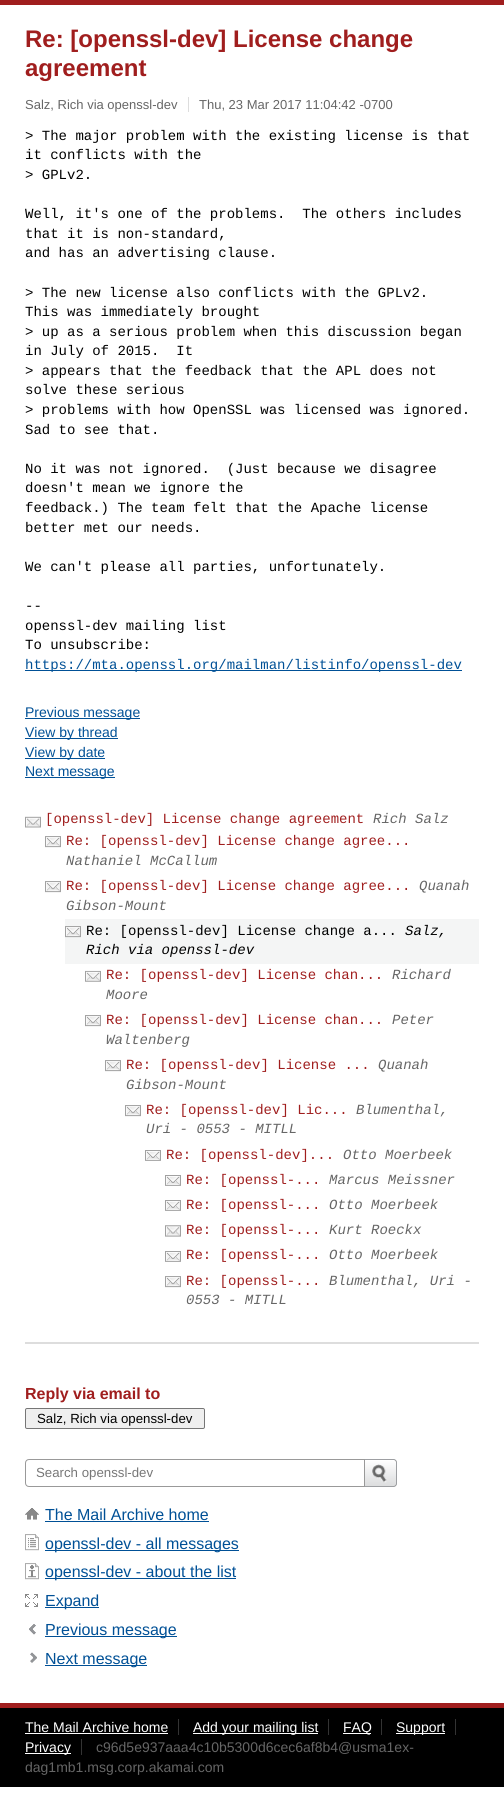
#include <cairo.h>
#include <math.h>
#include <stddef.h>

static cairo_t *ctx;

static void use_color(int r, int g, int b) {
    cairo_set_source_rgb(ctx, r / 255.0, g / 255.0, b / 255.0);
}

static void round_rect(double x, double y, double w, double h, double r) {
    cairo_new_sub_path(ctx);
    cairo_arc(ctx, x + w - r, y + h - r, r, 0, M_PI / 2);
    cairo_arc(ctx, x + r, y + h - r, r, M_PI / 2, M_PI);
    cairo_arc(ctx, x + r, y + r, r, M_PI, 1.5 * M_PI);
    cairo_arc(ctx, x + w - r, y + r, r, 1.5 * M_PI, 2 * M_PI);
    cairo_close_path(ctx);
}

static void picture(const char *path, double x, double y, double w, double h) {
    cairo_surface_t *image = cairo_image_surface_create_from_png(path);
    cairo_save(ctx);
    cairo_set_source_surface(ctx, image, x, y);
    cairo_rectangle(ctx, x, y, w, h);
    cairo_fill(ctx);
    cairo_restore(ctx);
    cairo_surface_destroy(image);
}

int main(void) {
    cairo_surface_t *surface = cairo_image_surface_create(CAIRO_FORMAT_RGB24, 504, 1809);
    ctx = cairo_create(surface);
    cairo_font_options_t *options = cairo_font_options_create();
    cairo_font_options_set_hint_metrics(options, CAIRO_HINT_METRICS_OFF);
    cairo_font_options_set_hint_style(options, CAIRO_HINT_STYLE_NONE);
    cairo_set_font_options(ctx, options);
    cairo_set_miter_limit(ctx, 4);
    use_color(255, 255, 255);
    cairo_paint(ctx);
    use_color(160, 30, 30);
    cairo_rectangle(ctx, 0, 0, 504, 5);
    cairo_fill(ctx);
    cairo_select_font_face(ctx, "Liberation Sans", CAIRO_FONT_SLANT_NORMAL, CAIRO_FONT_WEIGHT_BOLD);
    cairo_set_font_size(ctx, 24);
    cairo_move_to(ctx, 25, 47);
    cairo_show_text(ctx, "Re: [openssl-dev] License change");
    cairo_move_to(ctx, 25, 76);
    cairo_show_text(ctx, "agreement");
    cairo_select_font_face(ctx, "Liberation Sans", CAIRO_FONT_SLANT_NORMAL, CAIRO_FONT_WEIGHT_NORMAL);
    cairo_set_font_size(ctx, 13);
    use_color(102, 102, 102);
    cairo_move_to(ctx, 25, 109);
    cairo_show_text(ctx, "Salz, Rich via openssl-dev");
    use_color(221, 221, 221);
    cairo_rectangle(ctx, 188, 97, 1, 15);
    cairo_fill(ctx);
    use_color(102, 102, 102);
    cairo_move_to(ctx, 199, 109);
    cairo_show_text(ctx, "Thu, 23 Mar 2017 11:04:42 -0700");
    cairo_select_font_face(ctx, "Liberation Mono", CAIRO_FONT_SLANT_NORMAL, CAIRO_FONT_WEIGHT_NORMAL);
    cairo_set_font_size(ctx, 14);
    use_color(0, 0, 0);
    cairo_move_to(ctx, 25, 140);
    cairo_show_text(ctx, "> The major problem with the existing license is that");
    cairo_move_to(ctx, 25, 159);
    cairo_show_text(ctx, "it conflicts with the");
    cairo_move_to(ctx, 25, 179);
    cairo_show_text(ctx, "> GPLv2.");
    cairo_move_to(ctx, 25, 218);
    cairo_show_text(ctx, "Well, it's one of the problems.  The others includes");
    cairo_move_to(ctx, 25, 238);
    cairo_show_text(ctx, "that it is non-standard,");
    cairo_move_to(ctx, 25, 257);
    cairo_show_text(ctx, "and has an advertising clause.");
    cairo_move_to(ctx, 25, 297);
    cairo_show_text(ctx, "> The new license also conflicts with the GPLv2.");
    cairo_move_to(ctx, 25, 316);
    cairo_show_text(ctx, "This was immediately brought");
    cairo_move_to(ctx, 25, 336);
    cairo_show_text(ctx, "> up as a serious problem when this discussion began");
    cairo_move_to(ctx, 25, 355);
    cairo_show_text(ctx, "in July of 2015.  It");
    cairo_move_to(ctx, 25, 375);
    cairo_show_text(ctx, "> appears that the feedback that the APL does not");
    cairo_move_to(ctx, 25, 394);
    cairo_show_text(ctx, "solve these serious");
    cairo_move_to(ctx, 25, 414);
    cairo_show_text(ctx, "> problems with how OpenSSL was licensed was ignored.");
    cairo_move_to(ctx, 25, 434);
    cairo_show_text(ctx, "Sad to see that.");
    cairo_move_to(ctx, 25, 473);
    cairo_show_text(ctx, "No it was not ignored.  (Just because we disagree");
    cairo_move_to(ctx, 25, 492);
    cairo_show_text(ctx, "doesn't mean we ignore the");
    cairo_move_to(ctx, 25, 512);
    cairo_show_text(ctx, "feedback.) The team felt that the Apache license");
    cairo_move_to(ctx, 25, 532);
    cairo_show_text(ctx, "better met our needs.");
    cairo_move_to(ctx, 25, 571);
    cairo_show_text(ctx, "We can't please all parties, unfortunately.");
    cairo_move_to(ctx, 25, 610);
    cairo_show_text(ctx, "--");
    cairo_move_to(ctx, 25, 630);
    cairo_show_text(ctx, "openssl-dev mailing list");
    cairo_move_to(ctx, 25, 649);
    cairo_show_text(ctx, "To unsubscribe:");
    use_color(0, 80, 150);
    cairo_rectangle(ctx, 25, 670, 437, 1);
    cairo_fill(ctx);
    cairo_move_to(ctx, 25, 669);
    cairo_show_text(ctx, "https://mta.openssl.org/mailman/listinfo/openssl-dev");
    cairo_rectangle(ctx, 25, 718, 115, 1);
    cairo_fill(ctx);
    cairo_select_font_face(ctx, "Liberation Sans", CAIRO_FONT_SLANT_NORMAL, CAIRO_FONT_WEIGHT_NORMAL);
    cairo_move_to(ctx, 25, 717);
    cairo_show_text(ctx, "Previous message");
    cairo_rectangle(ctx, 25, 738, 93, 1);
    cairo_fill(ctx);
    cairo_move_to(ctx, 25, 737);
    cairo_show_text(ctx, "View by thread");
    cairo_rectangle(ctx, 25, 758, 80, 1);
    cairo_fill(ctx);
    cairo_move_to(ctx, 25, 757);
    cairo_show_text(ctx, "View by date");
    cairo_rectangle(ctx, 25, 777, 90, 1);
    cairo_fill(ctx);
    cairo_move_to(ctx, 25, 776);
    cairo_show_text(ctx, "Next message");
    picture("img1.png", 25, 816, 16, 12);
    cairo_select_font_face(ctx, "Liberation Mono", CAIRO_FONT_SLANT_NORMAL, CAIRO_FONT_WEIGHT_NORMAL);
    use_color(160, 30, 30);
    cairo_move_to(ctx, 45, 823);
    cairo_show_text(ctx, "[openssl-dev] License change agreement");
    cairo_select_font_face(ctx, "Liberation Mono", CAIRO_FONT_SLANT_ITALIC, CAIRO_FONT_WEIGHT_NORMAL);
    use_color(102, 102, 102);
    cairo_move_to(ctx, 373, 823);
    cairo_show_text(ctx, "Rich Salz");
    picture("img2.png", 45, 836, 16, 12);
    cairo_select_font_face(ctx, "Liberation Mono", CAIRO_FONT_SLANT_NORMAL, CAIRO_FONT_WEIGHT_NORMAL);
    use_color(160, 30, 30);
    cairo_move_to(ctx, 66, 845);
    cairo_show_text(ctx, "Re: [openssl-dev] License change agree...");
    cairo_select_font_face(ctx, "Liberation Mono", CAIRO_FONT_SLANT_ITALIC, CAIRO_FONT_WEIGHT_NORMAL);
    use_color(102, 102, 102);
    cairo_move_to(ctx, 66, 865);
    cairo_show_text(ctx, "Nathaniel McCallum");
    picture("img2.png", 45, 881, 16, 12);
    cairo_select_font_face(ctx, "Liberation Mono", CAIRO_FONT_SLANT_NORMAL, CAIRO_FONT_WEIGHT_NORMAL);
    use_color(160, 30, 30);
    cairo_move_to(ctx, 66, 890);
    cairo_show_text(ctx, "Re: [openssl-dev] License change agree...");
    cairo_select_font_face(ctx, "Liberation Mono", CAIRO_FONT_SLANT_ITALIC, CAIRO_FONT_WEIGHT_NORMAL);
    use_color(102, 102, 102);
    cairo_move_to(ctx, 419, 890);
    cairo_show_text(ctx, "Quanah");
    cairo_move_to(ctx, 66, 910);
    cairo_show_text(ctx, "Gibson-Mount");
    use_color(244, 245, 245);
    cairo_rectangle(ctx, 65, 919, 414, 45);
    cairo_fill(ctx);
    picture("img3.png", 65, 926, 16, 12);
    cairo_select_font_face(ctx, "Liberation Mono", CAIRO_FONT_SLANT_NORMAL, CAIRO_FONT_WEIGHT_NORMAL);
    use_color(0, 0, 0);
    cairo_move_to(ctx, 86, 935);
    cairo_show_text(ctx, "Re: [openssl-dev] License change a...");
    cairo_select_font_face(ctx, "Liberation Mono", CAIRO_FONT_SLANT_ITALIC, CAIRO_FONT_WEIGHT_NORMAL);
    cairo_move_to(ctx, 405, 935);
    cairo_show_text(ctx, "Salz,");
    cairo_move_to(ctx, 86, 954);
    cairo_show_text(ctx, "Rich via openssl-dev");
    picture("img4.png", 85, 970, 16, 12);
    cairo_select_font_face(ctx, "Liberation Mono", CAIRO_FONT_SLANT_NORMAL, CAIRO_FONT_WEIGHT_NORMAL);
    use_color(160, 30, 30);
    cairo_move_to(ctx, 106, 979);
    cairo_show_text(ctx, "Re: [openssl-dev] License chan...");
    cairo_select_font_face(ctx, "Liberation Mono", CAIRO_FONT_SLANT_ITALIC, CAIRO_FONT_WEIGHT_NORMAL);
    use_color(102, 102, 102);
    cairo_move_to(ctx, 392, 979);
    cairo_show_text(ctx, "Richard");
    cairo_move_to(ctx, 106, 999);
    cairo_show_text(ctx, "Moore");
    picture("img2.png", 85, 1015, 16, 12);
    cairo_select_font_face(ctx, "Liberation Mono", CAIRO_FONT_SLANT_NORMAL, CAIRO_FONT_WEIGHT_NORMAL);
    use_color(160, 30, 30);
    cairo_move_to(ctx, 106, 1024);
    cairo_show_text(ctx, "Re: [openssl-dev] License chan...");
    cairo_select_font_face(ctx, "Liberation Mono", CAIRO_FONT_SLANT_ITALIC, CAIRO_FONT_WEIGHT_NORMAL);
    use_color(102, 102, 102);
    cairo_move_to(ctx, 392, 1024);
    cairo_show_text(ctx, "Peter");
    cairo_move_to(ctx, 106, 1044);
    cairo_show_text(ctx, "Waltenberg");
    picture("img2.png", 105, 1060, 16, 12);
    cairo_select_font_face(ctx, "Liberation Mono", CAIRO_FONT_SLANT_NORMAL, CAIRO_FONT_WEIGHT_NORMAL);
    use_color(160, 30, 30);
    cairo_move_to(ctx, 126, 1069);
    cairo_show_text(ctx, "Re: [openssl-dev] License ...");
    cairo_select_font_face(ctx, "Liberation Mono", CAIRO_FONT_SLANT_ITALIC, CAIRO_FONT_WEIGHT_NORMAL);
    use_color(102, 102, 102);
    cairo_move_to(ctx, 378, 1069);
    cairo_show_text(ctx, "Quanah");
    cairo_move_to(ctx, 126, 1089);
    cairo_show_text(ctx, "Gibson-Mount");
    picture("img2.png", 125, 1105, 16, 12);
    cairo_select_font_face(ctx, "Liberation Mono", CAIRO_FONT_SLANT_NORMAL, CAIRO_FONT_WEIGHT_NORMAL);
    use_color(160, 30, 30);
    cairo_move_to(ctx, 146, 1114);
    cairo_show_text(ctx, "Re: [openssl-dev] Lic...");
    cairo_select_font_face(ctx, "Liberation Mono", CAIRO_FONT_SLANT_ITALIC, CAIRO_FONT_WEIGHT_NORMAL);
    use_color(102, 102, 102);
    cairo_move_to(ctx, 356, 1114);
    cairo_show_text(ctx, "Blumenthal,");
    cairo_move_to(ctx, 146, 1133);
    cairo_show_text(ctx, "Uri - 0553 - MITLL");
    picture("img5.png", 145, 1150, 16, 11);
    cairo_select_font_face(ctx, "Liberation Mono", CAIRO_FONT_SLANT_NORMAL, CAIRO_FONT_WEIGHT_NORMAL);
    use_color(160, 30, 30);
    cairo_move_to(ctx, 166, 1159);
    cairo_show_text(ctx, "Re: [openssl-dev]...");
    cairo_select_font_face(ctx, "Liberation Mono", CAIRO_FONT_SLANT_ITALIC, CAIRO_FONT_WEIGHT_NORMAL);
    use_color(102, 102, 102);
    cairo_move_to(ctx, 343, 1159);
    cairo_show_text(ctx, "Otto Moerbeek");
    picture("img5.png", 165, 1175, 16, 11);
    cairo_select_font_face(ctx, "Liberation Mono", CAIRO_FONT_SLANT_NORMAL, CAIRO_FONT_WEIGHT_NORMAL);
    use_color(160, 30, 30);
    cairo_move_to(ctx, 186, 1184);
    cairo_show_text(ctx, "Re: [openssl-...");
    cairo_select_font_face(ctx, "Liberation Mono", CAIRO_FONT_SLANT_ITALIC, CAIRO_FONT_WEIGHT_NORMAL);
    use_color(102, 102, 102);
    cairo_move_to(ctx, 329, 1184);
    cairo_show_text(ctx, "Marcus Meissner");
    picture("img5.png", 165, 1200, 16, 11);
    cairo_select_font_face(ctx, "Liberation Mono", CAIRO_FONT_SLANT_NORMAL, CAIRO_FONT_WEIGHT_NORMAL);
    use_color(160, 30, 30);
    cairo_move_to(ctx, 186, 1209);
    cairo_show_text(ctx, "Re: [openssl-...");
    cairo_select_font_face(ctx, "Liberation Mono", CAIRO_FONT_SLANT_ITALIC, CAIRO_FONT_WEIGHT_NORMAL);
    use_color(102, 102, 102);
    cairo_move_to(ctx, 329, 1209);
    cairo_show_text(ctx, "Otto Moerbeek");
    picture("img6.png", 165, 1225, 16, 12);
    cairo_select_font_face(ctx, "Liberation Mono", CAIRO_FONT_SLANT_NORMAL, CAIRO_FONT_WEIGHT_NORMAL);
    use_color(160, 30, 30);
    cairo_move_to(ctx, 186, 1234);
    cairo_show_text(ctx, "Re: [openssl-...");
    cairo_select_font_face(ctx, "Liberation Mono", CAIRO_FONT_SLANT_ITALIC, CAIRO_FONT_WEIGHT_NORMAL);
    use_color(102, 102, 102);
    cairo_move_to(ctx, 329, 1234);
    cairo_show_text(ctx, "Kurt Roeckx");
    picture("img5.png", 165, 1251, 16, 11);
    cairo_select_font_face(ctx, "Liberation Mono", CAIRO_FONT_SLANT_NORMAL, CAIRO_FONT_WEIGHT_NORMAL);
    use_color(160, 30, 30);
    cairo_move_to(ctx, 186, 1259);
    cairo_show_text(ctx, "Re: [openssl-...");
    cairo_select_font_face(ctx, "Liberation Mono", CAIRO_FONT_SLANT_ITALIC, CAIRO_FONT_WEIGHT_NORMAL);
    use_color(102, 102, 102);
    cairo_move_to(ctx, 329, 1259);
    cairo_show_text(ctx, "Otto Moerbeek");
    picture("img2.png", 165, 1276, 16, 12);
    cairo_select_font_face(ctx, "Liberation Mono", CAIRO_FONT_SLANT_NORMAL, CAIRO_FONT_WEIGHT_NORMAL);
    use_color(160, 30, 30);
    cairo_move_to(ctx, 186, 1285);
    cairo_show_text(ctx, "Re: [openssl-...");
    cairo_select_font_face(ctx, "Liberation Mono", CAIRO_FONT_SLANT_ITALIC, CAIRO_FONT_WEIGHT_NORMAL);
    use_color(102, 102, 102);
    cairo_move_to(ctx, 329, 1285);
    cairo_show_text(ctx, "Blumenthal, Uri -");
    cairo_move_to(ctx, 186, 1304);
    cairo_show_text(ctx, "0553 - MITLL");
    use_color(221, 221, 221);
    cairo_rectangle(ctx, 25, 1342, 454, 2);
    cairo_fill(ctx);
    cairo_select_font_face(ctx, "Liberation Sans", CAIRO_FONT_SLANT_NORMAL, CAIRO_FONT_WEIGHT_BOLD);
    cairo_set_font_size(ctx, 16);
    use_color(160, 30, 30);
    cairo_move_to(ctx, 25, 1399);
    cairo_show_text(ctx, "Reply via email to");
    use_color(239, 239, 239);
    round_rect(25.5, 1408.5, 179, 20, 1.5);
    cairo_fill_preserve(ctx);
    use_color(118, 118, 118);
    cairo_set_line_width(ctx, 1);
    cairo_stroke(ctx);
    cairo_select_font_face(ctx, "Liberation Sans", CAIRO_FONT_SLANT_NORMAL, CAIRO_FONT_WEIGHT_NORMAL);
    cairo_set_font_size(ctx, 13.25);
    use_color(0, 0, 0);
    cairo_move_to(ctx, 37, 1423);
    cairo_show_text(ctx, "Salz, Rich via openssl-dev");
    cairo_new_path(ctx);
    cairo_move_to(ctx, 29, 1459.5);
    cairo_line_to(ctx, 364.5, 1459.5);
    cairo_line_to(ctx, 364.5, 1486.5);
    cairo_line_to(ctx, 29, 1486.5);
    cairo_curve_to(ctx, 27, 1486.5, 25.5, 1485, 25.5, 1483);
    cairo_line_to(ctx, 25.5, 1463);
    cairo_curve_to(ctx, 25.5, 1461, 27, 1459.5, 29, 1459.5);
    cairo_close_path(ctx);
    use_color(153, 153, 153);
    cairo_stroke(ctx);
    use_color(119, 119, 119);
    cairo_move_to(ctx, 36, 1477);
    cairo_show_text(ctx, "Search openssl-dev");
    picture("img7.png", 365, 1459, 32, 28);
    picture("img8.png", 25, 1508, 14, 12);
    cairo_set_font_size(ctx, 16);
    use_color(0, 80, 150);
    cairo_move_to(ctx, 45, 1520);
    cairo_show_text(ctx, "The Mail Archive home");
    cairo_rectangle(ctx, 45, 1521, 164, 1);
    cairo_fill(ctx);
    picture("img9.png", 25, 1534, 14, 17);
    cairo_rectangle(ctx, 45, 1550, 194, 1);
    cairo_fill(ctx);
    cairo_move_to(ctx, 45, 1549);
    cairo_show_text(ctx, "openssl-dev - all messages");
    picture("img10.png", 25, 1563, 14, 17);
    cairo_rectangle(ctx, 45, 1578, 191, 1);
    cairo_fill(ctx);
    cairo_move_to(ctx, 45, 1577);
    cairo_show_text(ctx, "openssl-dev - about the list");
    picture("img11.png", 25, 1594, 13, 13);
    cairo_rectangle(ctx, 45, 1607, 54, 1);
    cairo_fill(ctx);
    cairo_move_to(ctx, 45, 1606);
    cairo_show_text(ctx, "Expand");
    picture("img12.png", 29, 1624, 7, 11);
    cairo_rectangle(ctx, 45, 1636, 132, 1);
    cairo_fill(ctx);
    cairo_move_to(ctx, 45, 1635);
    cairo_show_text(ctx, "Previous message");
    picture("img13.png", 30, 1652, 7, 11);
    cairo_rectangle(ctx, 45, 1665, 102, 1);
    cairo_fill(ctx);
    cairo_move_to(ctx, 45, 1664);
    cairo_show_text(ctx, "Next message");
    use_color(0, 0, 0);
    cairo_rectangle(ctx, 0, 1708, 504, 79);
    cairo_fill(ctx);
    use_color(160, 30, 30);
    cairo_rectangle(ctx, 0, 1703, 504, 5);
    cairo_fill(ctx);
    cairo_set_font_size(ctx, 14);
    use_color(255, 255, 255);
    cairo_move_to(ctx, 25, 1732);
    cairo_show_text(ctx, "The Mail Archive home");
    use_color(51, 51, 51);
    cairo_rectangle(ctx, 178, 1719, 1, 16);
    cairo_fill(ctx);
    use_color(255, 255, 255);
    cairo_rectangle(ctx, 25, 1733, 143, 1);
    cairo_fill(ctx);
    cairo_rectangle(ctx, 193, 1733, 125, 1);
    cairo_fill(ctx);
    cairo_move_to(ctx, 193, 1732);
    cairo_show_text(ctx, "Add your mailing list");
    use_color(51, 51, 51);
    cairo_rectangle(ctx, 328, 1719, 1, 16);
    cairo_fill(ctx);
    use_color(255, 255, 255);
    cairo_rectangle(ctx, 343, 1733, 28, 1);
    cairo_fill(ctx);
    cairo_move_to(ctx, 343, 1732);
    cairo_show_text(ctx, "FAQ");
    use_color(51, 51, 51);
    cairo_rectangle(ctx, 381, 1719, 1, 16);
    cairo_fill(ctx);
    use_color(255, 255, 255);
    cairo_rectangle(ctx, 396, 1733, 49, 1);
    cairo_fill(ctx);
    cairo_move_to(ctx, 396, 1732);
    cairo_show_text(ctx, "Support");
    use_color(51, 51, 51);
    cairo_rectangle(ctx, 455, 1719, 1, 16);
    cairo_fill(ctx);
    use_color(255, 255, 255);
    cairo_rectangle(ctx, 25, 1753, 46, 1);
    cairo_fill(ctx);
    cairo_move_to(ctx, 25, 1752);
    cairo_show_text(ctx, "Privacy");
    use_color(51, 51, 51);
    cairo_rectangle(ctx, 81, 1739, 1, 16);
    cairo_fill(ctx);
    use_color(102, 102, 102);
    cairo_move_to(ctx, 96, 1752);
    cairo_show_text(ctx, "c96d5e937aaa4c10b5300d6cec6af8b4@usma1ex-");
    cairo_move_to(ctx, 25, 1772);
    cairo_show_text(ctx, "dag1mb1.msg.corp.akamai.com");
    cairo_surface_write_to_png(surface, "result.png");
    cairo_font_options_destroy(options);
    cairo_destroy(ctx);
    cairo_surface_destroy(surface);
    return 0;
}
